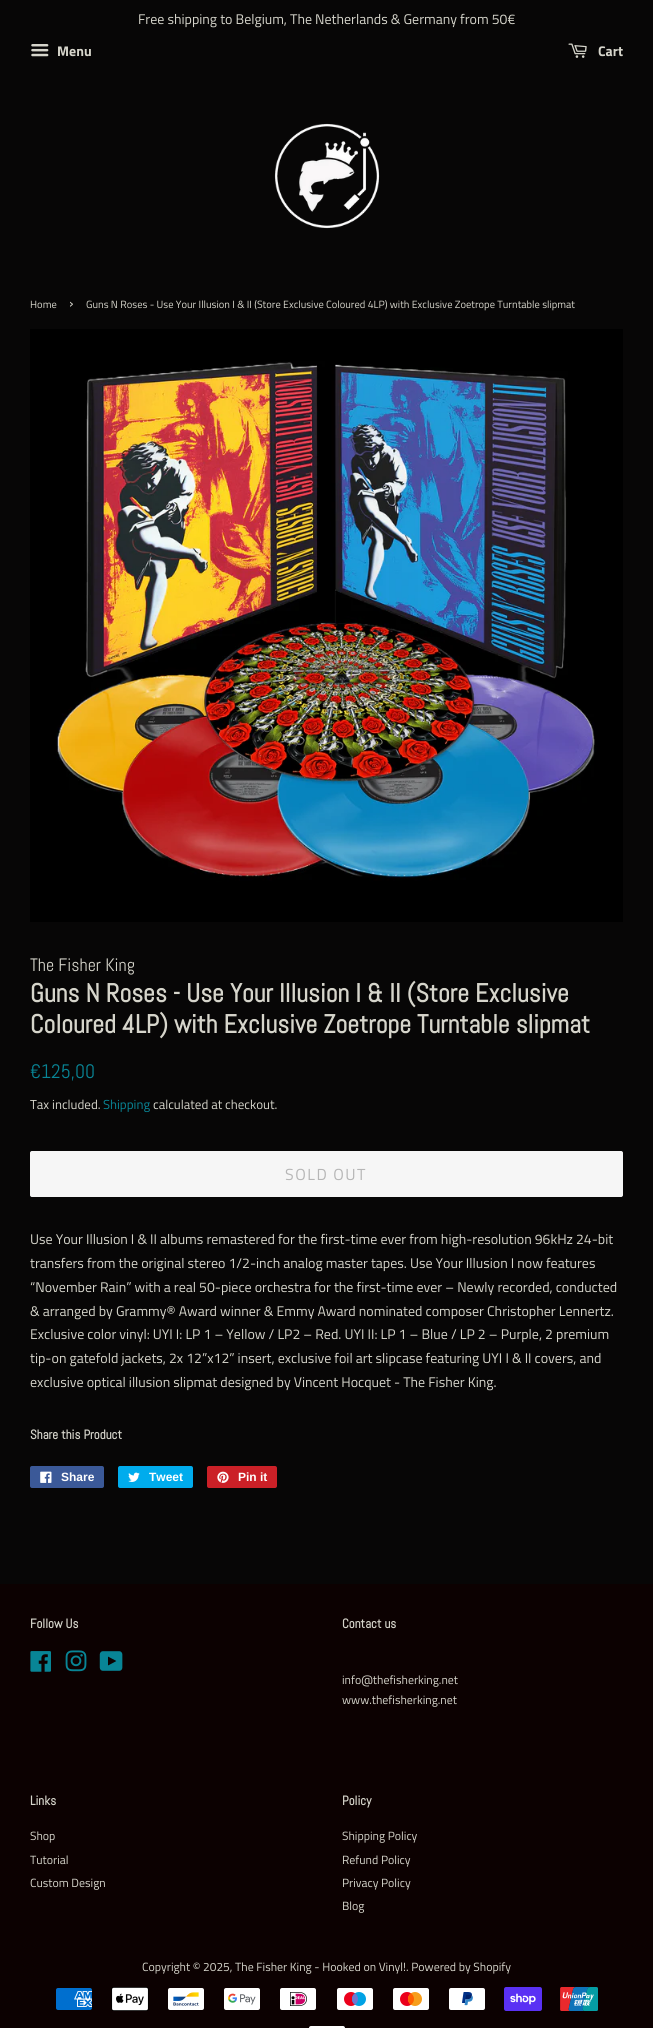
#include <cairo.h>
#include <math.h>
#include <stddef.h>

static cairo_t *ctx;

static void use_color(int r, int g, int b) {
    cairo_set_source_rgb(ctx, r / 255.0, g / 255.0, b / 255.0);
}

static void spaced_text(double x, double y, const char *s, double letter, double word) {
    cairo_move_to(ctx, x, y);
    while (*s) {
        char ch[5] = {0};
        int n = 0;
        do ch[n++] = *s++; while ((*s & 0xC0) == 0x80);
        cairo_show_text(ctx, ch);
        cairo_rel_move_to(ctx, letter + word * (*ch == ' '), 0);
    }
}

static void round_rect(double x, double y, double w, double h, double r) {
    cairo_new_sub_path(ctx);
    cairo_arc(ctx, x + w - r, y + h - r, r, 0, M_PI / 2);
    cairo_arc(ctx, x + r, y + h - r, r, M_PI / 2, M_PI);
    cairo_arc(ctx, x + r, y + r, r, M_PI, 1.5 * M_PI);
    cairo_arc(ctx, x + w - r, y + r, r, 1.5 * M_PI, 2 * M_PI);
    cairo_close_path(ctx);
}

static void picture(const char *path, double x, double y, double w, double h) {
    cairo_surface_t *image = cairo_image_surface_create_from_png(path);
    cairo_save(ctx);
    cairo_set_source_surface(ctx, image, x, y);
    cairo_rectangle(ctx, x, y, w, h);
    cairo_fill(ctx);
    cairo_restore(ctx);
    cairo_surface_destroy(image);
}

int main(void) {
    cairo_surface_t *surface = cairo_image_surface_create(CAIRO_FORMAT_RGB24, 653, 2028);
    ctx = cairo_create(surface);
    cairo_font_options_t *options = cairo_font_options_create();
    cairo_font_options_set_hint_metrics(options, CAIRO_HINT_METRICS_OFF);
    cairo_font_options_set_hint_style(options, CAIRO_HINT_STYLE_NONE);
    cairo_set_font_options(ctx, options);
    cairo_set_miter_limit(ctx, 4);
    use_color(7, 6, 6);
    cairo_paint(ctx);
    cairo_select_font_face(ctx, "Titillium Web", CAIRO_FONT_SLANT_NORMAL, CAIRO_FONT_WEIGHT_NORMAL);
    cairo_set_font_size(ctx, 14);
    use_color(214, 213, 203);
    cairo_move_to(ctx, 138, 24);
    cairo_show_text(ctx, "Free shipping to Belgium, The Netherlands & Germany from 50€");
    picture("img1.png", 31, 44, 18, 13);
    cairo_select_font_face(ctx, "Titillium Web", CAIRO_FONT_SLANT_NORMAL, CAIRO_FONT_WEIGHT_BOLD);
    cairo_move_to(ctx, 57, 56);
    cairo_show_text(ctx, "Menu");
    picture("img2.png", 568, 43, 19, 15);
    cairo_move_to(ctx, 598, 56);
    cairo_show_text(ctx, "Cart");
    picture("img3.png", 274, 123, 106, 106);
    cairo_select_font_face(ctx, "Titillium Web", CAIRO_FONT_SLANT_NORMAL, CAIRO_FONT_WEIGHT_NORMAL);
    cairo_set_font_size(ctx, 10.5);
    cairo_move_to(ctx, 30, 308);
    cairo_show_text(ctx, "Home");
    cairo_set_font_size(ctx, 15);
    cairo_move_to(ctx, 69, 308);
    cairo_show_text(ctx, "›");
    cairo_set_font_size(ctx, 10.5);
    cairo_move_to(ctx, 86, 308);
    cairo_show_text(ctx, "Guns N Roses - Use Your Illusion I & II (Store Exclusive Coloured 4LP) with Exclusive Zoetrope Turntable slipmat");
    picture("img4.png", 30, 329, 593, 593);
    cairo_select_font_face(ctx, "Abel", CAIRO_FONT_SLANT_NORMAL, CAIRO_FONT_WEIGHT_NORMAL);
    cairo_set_font_size(ctx, 18);
    cairo_move_to(ctx, 30, 971);
    cairo_show_text(ctx, "The Fisher King");
    cairo_select_font_face(ctx, "Abel", CAIRO_FONT_SLANT_NORMAL, CAIRO_FONT_WEIGHT_BOLD);
    cairo_set_font_size(ctx, 26);
    cairo_move_to(ctx, 30, 1002);
    cairo_show_text(ctx, "Guns N Roses - Use Your Illusion I & II (Store Exclusive");
    cairo_move_to(ctx, 30, 1033);
    cairo_show_text(ctx, "Coloured 4LP) with Exclusive Zoetrope Turntable slipmat");
    cairo_select_font_face(ctx, "Abel", CAIRO_FONT_SLANT_NORMAL, CAIRO_FONT_WEIGHT_NORMAL);
    cairo_set_font_size(ctx, 19.5);
    use_color(8, 133, 150);
    cairo_move_to(ctx, 30, 1078);
    cairo_show_text(ctx, "€125,00");
    cairo_select_font_face(ctx, "Titillium Web", CAIRO_FONT_SLANT_NORMAL, CAIRO_FONT_WEIGHT_NORMAL);
    cairo_set_font_size(ctx, 13);
    use_color(214, 213, 203);
    cairo_move_to(ctx, 30, 1109);
    cairo_show_text(ctx, "Tax included.");
    use_color(8, 133, 150);
    cairo_move_to(ctx, 103, 1109);
    cairo_show_text(ctx, "Shipping");
    use_color(214, 213, 203);
    cairo_move_to(ctx, 153, 1109);
    cairo_show_text(ctx, "calculated at checkout.");
    use_color(246, 246, 246);
    round_rect(30.5, 1151.5, 592, 45, 1.5);
    cairo_fill_preserve(ctx);
    cairo_set_line_width(ctx, 1);
    cairo_stroke(ctx);
    cairo_set_font_size(ctx, 16);
    use_color(182, 182, 182);
    spaced_text(285, 1180, "SOLD OUT", 1.5, 0);
    cairo_set_font_size(ctx, 14);
    use_color(214, 213, 203);
    cairo_move_to(ctx, 30, 1244);
    cairo_show_text(ctx, "Use Your Illusion I & II albums remastered for the first-time ever from high-resolution 96kHz 24-bit");
    cairo_move_to(ctx, 30, 1268);
    cairo_show_text(ctx, "transfers from the original stereo 1/2-inch analog master tapes. Use Your Illusion I now features");
    cairo_move_to(ctx, 30, 1292);
    cairo_show_text(ctx, "“November Rain” with a real 50-piece orchestra for the first-time ever – Newly recorded, conducted");
    cairo_move_to(ctx, 30, 1316);
    cairo_show_text(ctx, "& arranged by Grammy® Award winner & Emmy Award nominated composer Christopher Lennertz.");
    cairo_move_to(ctx, 30, 1339);
    cairo_show_text(ctx, "Exclusive color vinyl: UYI I: LP 1 – Yellow / LP2 – Red. UYI II: LP 1 – Blue / LP 2 – Purple, 2 premium");
    cairo_move_to(ctx, 30, 1363);
    cairo_show_text(ctx, "tip-on gatefold jackets, 2x 12”x12” insert, exclusive foil art slipcase featuring UYI I & II covers, and");
    cairo_move_to(ctx, 30, 1387);
    cairo_show_text(ctx, "exclusive optical illusion slipmat designed by Vincent Hocquet - The Fisher King.");
    cairo_select_font_face(ctx, "Abel", CAIRO_FONT_SLANT_NORMAL, CAIRO_FONT_WEIGHT_BOLD);
    cairo_set_font_size(ctx, 13);
    cairo_move_to(ctx, 30, 1439);
    cairo_show_text(ctx, "Share this Product");
    use_color(59, 89, 152);
    round_rect(30, 1466, 74, 22, 2);
    cairo_fill(ctx);
    picture("img5.png", 40, 1471, 12, 12);
    cairo_select_font_face(ctx, "Liberation Sans", CAIRO_FONT_SLANT_NORMAL, CAIRO_FONT_WEIGHT_BOLD);
    cairo_set_font_size(ctx, 12);
    use_color(255, 255, 255);
    cairo_move_to(ctx, 61, 1481);
    cairo_show_text(ctx, "Share");
    use_color(0, 172, 237);
    round_rect(118, 1466, 75, 22, 2);
    cairo_fill(ctx);
    picture("img6.png", 128, 1472, 12, 10);
    use_color(255, 255, 255);
    cairo_move_to(ctx, 149, 1481);
    cairo_show_text(ctx, "Tweet");
    use_color(203, 32, 39);
    round_rect(207, 1466, 70, 22, 2);
    cairo_fill(ctx);
    picture("img7.png", 217, 1471, 12, 12);
    use_color(255, 255, 255);
    cairo_move_to(ctx, 238, 1481);
    cairo_show_text(ctx, "Pin it");
    use_color(12, 1, 1);
    cairo_rectangle(ctx, 0, 1584, 653, 444);
    cairo_fill(ctx);
    cairo_select_font_face(ctx, "Abel", CAIRO_FONT_SLANT_NORMAL, CAIRO_FONT_WEIGHT_BOLD);
    cairo_set_font_size(ctx, 13);
    use_color(214, 213, 203);
    cairo_move_to(ctx, 30, 1628);
    cairo_show_text(ctx, "Follow Us");
    picture("img8.png", 30, 1651, 21, 21);
    picture("img9.png", 65, 1650, 22, 22);
    picture("img10.png", 99, 1651, 24, 20);
    cairo_move_to(ctx, 342, 1628);
    cairo_show_text(ctx, "Contact us");
    cairo_select_font_face(ctx, "Titillium Web", CAIRO_FONT_SLANT_NORMAL, CAIRO_FONT_WEIGHT_NORMAL);
    cairo_set_font_size(ctx, 11.9);
    cairo_move_to(ctx, 342, 1684);
    cairo_show_text(ctx, "info@thefisherking.net");
    cairo_move_to(ctx, 342, 1704);
    cairo_show_text(ctx, "www.thefisherking.net");
    cairo_select_font_face(ctx, "Abel", CAIRO_FONT_SLANT_NORMAL, CAIRO_FONT_WEIGHT_BOLD);
    cairo_set_font_size(ctx, 13);
    cairo_move_to(ctx, 30, 1805);
    cairo_show_text(ctx, "Links");
    cairo_select_font_face(ctx, "Titillium Web", CAIRO_FONT_SLANT_NORMAL, CAIRO_FONT_WEIGHT_NORMAL);
    cairo_set_font_size(ctx, 11.9);
    cairo_move_to(ctx, 30, 1840);
    cairo_show_text(ctx, "Shop");
    cairo_move_to(ctx, 30, 1864);
    cairo_show_text(ctx, "Tutorial");
    cairo_move_to(ctx, 30, 1887);
    cairo_show_text(ctx, "Custom Design");
    cairo_select_font_face(ctx, "Abel", CAIRO_FONT_SLANT_NORMAL, CAIRO_FONT_WEIGHT_BOLD);
    cairo_set_font_size(ctx, 13);
    cairo_move_to(ctx, 342, 1805);
    cairo_show_text(ctx, "Policy");
    cairo_select_font_face(ctx, "Titillium Web", CAIRO_FONT_SLANT_NORMAL, CAIRO_FONT_WEIGHT_NORMAL);
    cairo_set_font_size(ctx, 11.9);
    cairo_move_to(ctx, 342, 1840);
    cairo_show_text(ctx, "Shipping Policy");
    cairo_move_to(ctx, 342, 1864);
    cairo_show_text(ctx, "Refund Policy");
    cairo_move_to(ctx, 342, 1887);
    cairo_show_text(ctx, "Privacy Policy");
    cairo_move_to(ctx, 342, 1910);
    cairo_show_text(ctx, "Blog");
    cairo_move_to(ctx, 142, 1971);
    cairo_show_text(ctx, "Copyright © 2025, The Fisher King - Hooked on Vinyl!. Powered by Shopify");
    picture("img11.png", 56, 1988, 36, 22);
    picture("img12.png", 111, 1987, 38, 24);
    picture("img13.png", 168, 1988, 36, 22);
    picture("img14.png", 224, 1988, 36, 22);
    picture("img15.png", 280, 1988, 36, 22);
    picture("img16.png", 337, 1988, 36, 22);
    picture("img17.png", 393, 1988, 36, 22);
    picture("img18.png", 449, 1988, 36, 22);
    picture("img19.png", 504, 1987, 38, 24);
    picture("img20.png", 560, 1987, 38, 24);
    picture("img21.png", 309, 2026, 36, 2);
    cairo_surface_write_to_png(surface, "result.png");
    cairo_font_options_destroy(options);
    cairo_destroy(ctx);
    cairo_surface_destroy(surface);
    return 0;
}
